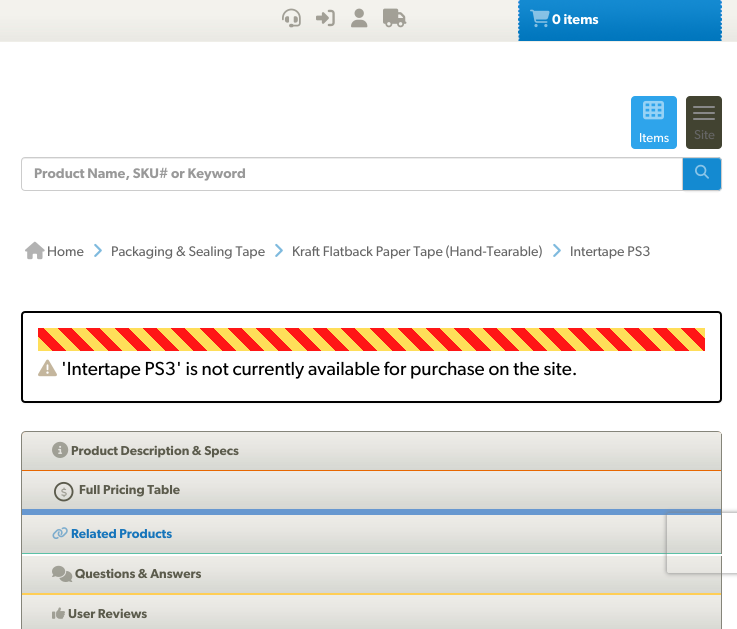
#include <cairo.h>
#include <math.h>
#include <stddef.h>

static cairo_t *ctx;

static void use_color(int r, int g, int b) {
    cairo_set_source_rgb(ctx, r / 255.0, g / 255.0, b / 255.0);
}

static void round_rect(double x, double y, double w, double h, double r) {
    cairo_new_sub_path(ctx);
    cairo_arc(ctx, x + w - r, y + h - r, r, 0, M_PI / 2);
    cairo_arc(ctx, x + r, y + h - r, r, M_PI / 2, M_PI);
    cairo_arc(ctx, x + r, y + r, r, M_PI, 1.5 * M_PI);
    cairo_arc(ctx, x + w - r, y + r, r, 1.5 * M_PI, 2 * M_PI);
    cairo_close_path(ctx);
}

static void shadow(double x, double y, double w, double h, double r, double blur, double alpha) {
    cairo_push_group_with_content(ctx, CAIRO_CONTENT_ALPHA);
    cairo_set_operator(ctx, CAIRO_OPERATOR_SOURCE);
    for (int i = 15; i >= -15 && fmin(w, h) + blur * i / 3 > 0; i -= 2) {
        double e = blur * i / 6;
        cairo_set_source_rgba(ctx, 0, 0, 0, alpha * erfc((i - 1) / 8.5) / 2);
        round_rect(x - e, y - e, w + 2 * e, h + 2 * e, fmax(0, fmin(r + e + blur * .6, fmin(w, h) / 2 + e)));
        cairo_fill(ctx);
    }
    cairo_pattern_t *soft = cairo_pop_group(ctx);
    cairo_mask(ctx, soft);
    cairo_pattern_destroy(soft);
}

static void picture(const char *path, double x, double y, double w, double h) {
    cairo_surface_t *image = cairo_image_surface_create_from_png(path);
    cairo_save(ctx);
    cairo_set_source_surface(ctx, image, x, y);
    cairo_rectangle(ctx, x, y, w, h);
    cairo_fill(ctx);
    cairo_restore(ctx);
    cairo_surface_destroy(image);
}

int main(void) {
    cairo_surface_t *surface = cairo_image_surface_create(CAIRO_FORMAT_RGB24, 737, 629);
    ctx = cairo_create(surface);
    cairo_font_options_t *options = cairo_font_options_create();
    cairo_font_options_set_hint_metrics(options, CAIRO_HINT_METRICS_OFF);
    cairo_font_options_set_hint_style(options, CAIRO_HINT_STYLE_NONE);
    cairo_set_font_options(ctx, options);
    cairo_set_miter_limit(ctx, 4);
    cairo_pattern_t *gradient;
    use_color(255, 255, 255);
    cairo_paint(ctx);
    use_color(239, 238, 232);
    cairo_rectangle(ctx, 0, 41, 737, 1);
    cairo_fill(ctx);
    picture("img1.png", 0, 0, 737, 41);
    picture("img2.png", 282, 8, 19, 20);
    picture("img3.png", 316, 9, 19, 18);
    picture("img4.png", 351, 8, 17, 20);
    picture("img5.png", 383, 8, 24, 20);
    picture("img6.png", 518, 0, 204, 41);
    picture("img7.png", 530, 9, 20, 19);
    cairo_select_font_face(ctx, "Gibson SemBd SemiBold", CAIRO_FONT_SLANT_NORMAL, CAIRO_FONT_WEIGHT_NORMAL);
    cairo_set_font_size(ctx, 14);
    use_color(255, 255, 255);
    cairo_move_to(ctx, 552, 24);
    cairo_show_text(ctx, "0 items");
    use_color(46, 164, 235);
    round_rect(631, 96, 46, 53, 4);
    cairo_fill(ctx);
    picture("img8.png", 643, 100, 21, 20);
    cairo_select_font_face(ctx, "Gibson", CAIRO_FONT_SLANT_NORMAL, CAIRO_FONT_WEIGHT_NORMAL);
    cairo_set_font_size(ctx, 13);
    use_color(255, 255, 255);
    cairo_move_to(ctx, 639, 142);
    cairo_show_text(ctx, "Items");
    use_color(66, 67, 49);
    round_rect(686, 96, 36, 53, 4);
    cairo_fill(ctx);
    use_color(136, 136, 136);
    round_rect(693, 106, 22, 2, 1);
    cairo_fill(ctx);
    round_rect(693, 112, 22, 2, 1);
    cairo_fill(ctx);
    round_rect(693, 118, 22, 2, 1);
    cairo_fill(ctx);
    use_color(102, 102, 102);
    cairo_move_to(ctx, 694, 139);
    cairo_show_text(ctx, "Site");
    use_color(236, 236, 236);
    cairo_new_path(ctx);
    cairo_move_to(ctx, 25, 159);
    cairo_line_to(ctx, 682, 159);
    cairo_line_to(ctx, 682, 158);
    cairo_line_to(ctx, 25, 158);
    cairo_curve_to(ctx, 23, 158, 22, 159, 22, 161);
    cairo_line_to(ctx, 22, 162);
    cairo_curve_to(ctx, 22, 160, 23, 159, 25, 159);
    cairo_close_path(ctx);
    cairo_fill(ctx);
    cairo_new_path(ctx);
    cairo_move_to(ctx, 25, 157.5);
    cairo_line_to(ctx, 682.5, 157.5);
    cairo_line_to(ctx, 682.5, 190.5);
    cairo_line_to(ctx, 25, 190.5);
    cairo_curve_to(ctx, 23, 190.5, 21.5, 189, 21.5, 187);
    cairo_line_to(ctx, 21.5, 161);
    cairo_curve_to(ctx, 21.5, 159, 23, 157.5, 25, 157.5);
    cairo_close_path(ctx);
    use_color(204, 204, 204);
    cairo_set_line_width(ctx, 1);
    cairo_stroke(ctx);
    cairo_select_font_face(ctx, "Gibson SemBd SemiBold", CAIRO_FONT_SLANT_NORMAL, CAIRO_FONT_WEIGHT_NORMAL);
    cairo_set_font_size(ctx, 14);
    use_color(153, 153, 153);
    cairo_move_to(ctx, 34, 178);
    cairo_show_text(ctx, "Product Name, SKU# or Keyword");
    use_color(0, 0, 0);
    shadow(682, 158, 40, 34, 4, 0.5, 0.07);
    use_color(20, 138, 209);
    cairo_new_path(ctx);
    cairo_move_to(ctx, 682, 157);
    cairo_line_to(ctx, 718, 157);
    cairo_curve_to(ctx, 720, 157, 722, 159, 722, 161);
    cairo_line_to(ctx, 722, 187);
    cairo_curve_to(ctx, 722, 189, 720, 191, 718, 191);
    cairo_line_to(ctx, 682, 191);
    cairo_close_path(ctx);
    cairo_fill(ctx);
    use_color(55, 156, 216);
    cairo_new_path(ctx);
    cairo_move_to(ctx, 683, 159);
    cairo_line_to(ctx, 718, 159);
    cairo_curve_to(ctx, 720, 159, 721, 160, 721, 162);
    cairo_line_to(ctx, 721, 161);
    cairo_curve_to(ctx, 721, 159.5, 719.5, 158, 718, 158);
    cairo_line_to(ctx, 683, 158);
    cairo_close_path(ctx);
    cairo_fill(ctx);
    cairo_new_path(ctx);
    cairo_move_to(ctx, 682.5, 157.5);
    cairo_line_to(ctx, 718, 157.5);
    cairo_curve_to(ctx, 720, 157.5, 721.5, 159, 721.5, 161);
    cairo_line_to(ctx, 721.5, 187);
    cairo_curve_to(ctx, 721.5, 189, 720, 190.5, 718, 190.5);
    cairo_line_to(ctx, 682.5, 190.5);
    cairo_close_path(ctx);
    use_color(204, 204, 204);
    cairo_stroke(ctx);
    picture("img9.png", 695, 164, 14, 15);
    picture("img10.png", 25, 241, 20, 19);
    cairo_select_font_face(ctx, "Gibson", CAIRO_FONT_SLANT_NORMAL, CAIRO_FONT_WEIGHT_NORMAL);
    use_color(102, 102, 102);
    cairo_move_to(ctx, 47, 256);
    cairo_show_text(ctx, "Home");
    picture("img11.png", 94, 243, 8, 14);
    cairo_move_to(ctx, 111, 256);
    cairo_show_text(ctx, "Packaging & Sealing Tape");
    picture("img11.png", 275, 243, 8, 14);
    cairo_move_to(ctx, 292, 256);
    cairo_show_text(ctx, "Kraft Flatback Paper Tape (Hand-Tearable)");
    picture("img11.png", 553, 243, 8, 14);
    cairo_move_to(ctx, 570, 256);
    cairo_show_text(ctx, "Intertape PS3");
    use_color(0, 0, 0);
    shadow(21, 312, 701, 92, 4, 1, 0.05);
    use_color(255, 255, 255);
    round_rect(22, 312, 699, 90, 3);
    cairo_fill_preserve(ctx);
    use_color(0, 0, 0);
    cairo_set_line_width(ctx, 2);
    cairo_stroke(ctx);
    gradient = cairo_pattern_create_linear(199, 512, 553, 158);
    cairo_pattern_add_color_stop_rgba(gradient, 0, 1, 0.871, 0.349, 1);
    cairo_pattern_add_color_stop_rgba(gradient, 0.02, 1, 0.871, 0.349, 1);
    cairo_pattern_add_color_stop_rgba(gradient, 0.02, 1, 0.086, 0.086, 1);
    cairo_pattern_add_color_stop_rgba(gradient, 0.04, 1, 0.086, 0.086, 1);
    cairo_pattern_add_color_stop_rgba(gradient, 0.04, 1, 0.871, 0.349, 1);
    cairo_pattern_add_color_stop_rgba(gradient, 0.06, 1, 0.871, 0.349, 1);
    cairo_pattern_add_color_stop_rgba(gradient, 0.06, 1, 0.086, 0.086, 1);
    cairo_pattern_add_color_stop_rgba(gradient, 0.08, 1, 0.086, 0.086, 1);
    cairo_pattern_add_color_stop_rgba(gradient, 0.08, 1, 0.871, 0.349, 1);
    cairo_pattern_add_color_stop_rgba(gradient, 0.1, 1, 0.871, 0.349, 1);
    cairo_pattern_add_color_stop_rgba(gradient, 0.1, 1, 0.086, 0.086, 1);
    cairo_pattern_add_color_stop_rgba(gradient, 0.12, 1, 0.086, 0.086, 1);
    cairo_pattern_add_color_stop_rgba(gradient, 0.12, 1, 0.871, 0.349, 1);
    cairo_pattern_add_color_stop_rgba(gradient, 0.14, 1, 0.871, 0.349, 1);
    cairo_pattern_add_color_stop_rgba(gradient, 0.14, 1, 0.086, 0.086, 1);
    cairo_pattern_add_color_stop_rgba(gradient, 0.16, 1, 0.086, 0.086, 1);
    cairo_pattern_add_color_stop_rgba(gradient, 0.16, 1, 0.871, 0.349, 1);
    cairo_pattern_add_color_stop_rgba(gradient, 0.18, 1, 0.871, 0.349, 1);
    cairo_pattern_add_color_stop_rgba(gradient, 0.18, 1, 0.086, 0.086, 1);
    cairo_pattern_add_color_stop_rgba(gradient, 0.2, 1, 0.086, 0.086, 1);
    cairo_pattern_add_color_stop_rgba(gradient, 0.2, 1, 0.871, 0.349, 1);
    cairo_pattern_add_color_stop_rgba(gradient, 0.22, 1, 0.871, 0.349, 1);
    cairo_pattern_add_color_stop_rgba(gradient, 0.22, 1, 0.086, 0.086, 1);
    cairo_pattern_add_color_stop_rgba(gradient, 0.24, 1, 0.086, 0.086, 1);
    cairo_pattern_add_color_stop_rgba(gradient, 0.24, 1, 0.871, 0.349, 1);
    cairo_pattern_add_color_stop_rgba(gradient, 0.26, 1, 0.871, 0.349, 1);
    cairo_pattern_add_color_stop_rgba(gradient, 0.26, 1, 0.086, 0.086, 1);
    cairo_pattern_add_color_stop_rgba(gradient, 0.28, 1, 0.086, 0.086, 1);
    cairo_pattern_add_color_stop_rgba(gradient, 0.28, 1, 0.871, 0.349, 1);
    cairo_pattern_add_color_stop_rgba(gradient, 0.3, 1, 0.871, 0.349, 1);
    cairo_pattern_add_color_stop_rgba(gradient, 0.3, 1, 0.086, 0.086, 1);
    cairo_pattern_add_color_stop_rgba(gradient, 0.32, 1, 0.086, 0.086, 1);
    cairo_pattern_add_color_stop_rgba(gradient, 0.32, 1, 0.871, 0.349, 1);
    cairo_pattern_add_color_stop_rgba(gradient, 0.34, 1, 0.871, 0.349, 1);
    cairo_pattern_add_color_stop_rgba(gradient, 0.34, 1, 0.086, 0.086, 1);
    cairo_pattern_add_color_stop_rgba(gradient, 0.36, 1, 0.086, 0.086, 1);
    cairo_pattern_add_color_stop_rgba(gradient, 0.36, 1, 0.871, 0.349, 1);
    cairo_pattern_add_color_stop_rgba(gradient, 0.38, 1, 0.871, 0.349, 1);
    cairo_pattern_add_color_stop_rgba(gradient, 0.38, 1, 0.086, 0.086, 1);
    cairo_pattern_add_color_stop_rgba(gradient, 0.4, 1, 0.086, 0.086, 1);
    cairo_pattern_add_color_stop_rgba(gradient, 0.4, 1, 0.871, 0.349, 1);
    cairo_pattern_add_color_stop_rgba(gradient, 0.42, 1, 0.871, 0.349, 1);
    cairo_pattern_add_color_stop_rgba(gradient, 0.42, 1, 0.086, 0.086, 1);
    cairo_pattern_add_color_stop_rgba(gradient, 0.44, 1, 0.086, 0.086, 1);
    cairo_pattern_add_color_stop_rgba(gradient, 0.44, 1, 0.871, 0.349, 1);
    cairo_pattern_add_color_stop_rgba(gradient, 0.46, 1, 0.871, 0.349, 1);
    cairo_pattern_add_color_stop_rgba(gradient, 0.46, 1, 0.086, 0.086, 1);
    cairo_pattern_add_color_stop_rgba(gradient, 0.48, 1, 0.086, 0.086, 1);
    cairo_pattern_add_color_stop_rgba(gradient, 0.48, 1, 0.871, 0.349, 1);
    cairo_pattern_add_color_stop_rgba(gradient, 0.5, 1, 0.871, 0.349, 1);
    cairo_pattern_add_color_stop_rgba(gradient, 0.5, 1, 0.086, 0.086, 1);
    cairo_pattern_add_color_stop_rgba(gradient, 0.52, 1, 0.086, 0.086, 1);
    cairo_pattern_add_color_stop_rgba(gradient, 0.52, 1, 0.871, 0.349, 1);
    cairo_pattern_add_color_stop_rgba(gradient, 0.54, 1, 0.871, 0.349, 1);
    cairo_pattern_add_color_stop_rgba(gradient, 0.54, 1, 0.086, 0.086, 1);
    cairo_pattern_add_color_stop_rgba(gradient, 0.56, 1, 0.086, 0.086, 1);
    cairo_pattern_add_color_stop_rgba(gradient, 0.56, 1, 0.871, 0.349, 1);
    cairo_pattern_add_color_stop_rgba(gradient, 0.58, 1, 0.871, 0.349, 1);
    cairo_pattern_add_color_stop_rgba(gradient, 0.58, 1, 0.086, 0.086, 1);
    cairo_pattern_add_color_stop_rgba(gradient, 0.6, 1, 0.086, 0.086, 1);
    cairo_pattern_add_color_stop_rgba(gradient, 0.6, 1, 0.871, 0.349, 1);
    cairo_pattern_add_color_stop_rgba(gradient, 0.62, 1, 0.871, 0.349, 1);
    cairo_pattern_add_color_stop_rgba(gradient, 0.62, 1, 0.086, 0.086, 1);
    cairo_pattern_add_color_stop_rgba(gradient, 0.64, 1, 0.086, 0.086, 1);
    cairo_pattern_add_color_stop_rgba(gradient, 0.64, 1, 0.871, 0.349, 1);
    cairo_pattern_add_color_stop_rgba(gradient, 0.66, 1, 0.871, 0.349, 1);
    cairo_pattern_add_color_stop_rgba(gradient, 0.66, 1, 0.086, 0.086, 1);
    cairo_pattern_add_color_stop_rgba(gradient, 0.68, 1, 0.086, 0.086, 1);
    cairo_pattern_add_color_stop_rgba(gradient, 0.68, 1, 0.871, 0.349, 1);
    cairo_pattern_add_color_stop_rgba(gradient, 0.7, 1, 0.871, 0.349, 1);
    cairo_pattern_add_color_stop_rgba(gradient, 0.7, 1, 0.086, 0.086, 1);
    cairo_pattern_add_color_stop_rgba(gradient, 0.72, 1, 0.086, 0.086, 1);
    cairo_pattern_add_color_stop_rgba(gradient, 0.72, 1, 0.871, 0.349, 1);
    cairo_pattern_add_color_stop_rgba(gradient, 0.74, 1, 0.871, 0.349, 1);
    cairo_pattern_add_color_stop_rgba(gradient, 0.74, 1, 0.086, 0.086, 1);
    cairo_pattern_add_color_stop_rgba(gradient, 0.76, 1, 0.086, 0.086, 1);
    cairo_pattern_add_color_stop_rgba(gradient, 0.76, 1, 0.871, 0.349, 1);
    cairo_pattern_add_color_stop_rgba(gradient, 0.78, 1, 0.871, 0.349, 1);
    cairo_pattern_add_color_stop_rgba(gradient, 0.78, 1, 0.086, 0.086, 1);
    cairo_pattern_add_color_stop_rgba(gradient, 0.8, 1, 0.086, 0.086, 1);
    cairo_pattern_add_color_stop_rgba(gradient, 0.8, 1, 0.871, 0.349, 1);
    cairo_pattern_add_color_stop_rgba(gradient, 0.82, 1, 0.871, 0.349, 1);
    cairo_pattern_add_color_stop_rgba(gradient, 0.82, 1, 0.086, 0.086, 1);
    cairo_pattern_add_color_stop_rgba(gradient, 0.84, 1, 0.086, 0.086, 1);
    cairo_pattern_add_color_stop_rgba(gradient, 0.84, 1, 0.871, 0.349, 1);
    cairo_pattern_add_color_stop_rgba(gradient, 0.86, 1, 0.871, 0.349, 1);
    cairo_pattern_add_color_stop_rgba(gradient, 0.86, 1, 0.086, 0.086, 1);
    cairo_pattern_add_color_stop_rgba(gradient, 0.88, 1, 0.086, 0.086, 1);
    cairo_pattern_add_color_stop_rgba(gradient, 0.88, 1, 0.871, 0.349, 1);
    cairo_pattern_add_color_stop_rgba(gradient, 0.9, 1, 0.871, 0.349, 1);
    cairo_pattern_add_color_stop_rgba(gradient, 0.9, 1, 0.086, 0.086, 1);
    cairo_pattern_add_color_stop_rgba(gradient, 0.92, 1, 0.086, 0.086, 1);
    cairo_pattern_add_color_stop_rgba(gradient, 0.92, 1, 0.871, 0.349, 1);
    cairo_pattern_add_color_stop_rgba(gradient, 0.94, 1, 0.871, 0.349, 1);
    cairo_pattern_add_color_stop_rgba(gradient, 0.94, 1, 0.086, 0.086, 1);
    cairo_pattern_add_color_stop_rgba(gradient, 0.96, 1, 0.086, 0.086, 1);
    cairo_pattern_add_color_stop_rgba(gradient, 0.96, 1, 0.871, 0.349, 1);
    cairo_pattern_add_color_stop_rgba(gradient, 0.98, 1, 0.871, 0.349, 1);
    cairo_pattern_add_color_stop_rgba(gradient, 0.98, 1, 0.086, 0.086, 1);
    cairo_pattern_add_color_stop_rgba(gradient, 1, 1, 0.086, 0.086, 1);
    cairo_set_source(ctx, gradient);
    cairo_pattern_destroy(gradient);
    cairo_rectangle(ctx, 38, 328, 667, 23);
    cairo_fill(ctx);
    picture("img12.png", 38, 359, 19, 18);
    cairo_set_font_size(ctx, 19);
    use_color(0, 0, 0);
    cairo_move_to(ctx, 61, 375);
    cairo_show_text(ctx, "'Intertape PS3' is not currently available for purchase on the site.");
    use_color(133, 133, 122);
    cairo_set_fill_rule(ctx, CAIRO_FILL_RULE_EVEN_ODD);
    cairo_new_path(ctx);
    cairo_move_to(ctx, 26, 431);
    cairo_line_to(ctx, 717, 431);
    cairo_curve_to(ctx, 720, 431, 722, 433, 722, 436);
    cairo_line_to(ctx, 722, 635);
    cairo_line_to(ctx, 21, 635);
    cairo_line_to(ctx, 21, 436);
    cairo_curve_to(ctx, 21, 433, 23, 431, 26, 431);
    cairo_close_path(ctx);
    cairo_move_to(ctx, 26, 432);
    cairo_line_to(ctx, 717, 432);
    cairo_curve_to(ctx, 720, 432, 722, 434, 722, 436);
    cairo_line_to(ctx, 722, 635);
    cairo_line_to(ctx, 22, 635);
    cairo_line_to(ctx, 22, 436);
    cairo_curve_to(ctx, 22, 434, 24, 432, 26, 432);
    cairo_close_path(ctx);
    cairo_fill(ctx);
    use_color(231, 103, 0);
    cairo_new_path(ctx);
    cairo_move_to(ctx, 26, 432);
    cairo_line_to(ctx, 718, 432);
    cairo_curve_to(ctx, 720, 432, 722, 434, 722, 436);
    cairo_line_to(ctx, 722, 471);
    cairo_line_to(ctx, 22, 471);
    cairo_line_to(ctx, 22, 436);
    cairo_curve_to(ctx, 22, 434, 24, 432, 26, 432);
    cairo_close_path(ctx);
    cairo_fill(ctx);
    picture("img13.png", 22, 432, 700, 38);
    use_color(133, 133, 122);
    cairo_rectangle(ctx, 721, 434, 1, 81);
    cairo_fill(ctx);
    picture("img14.png", 52, 441, 17, 17);
    cairo_select_font_face(ctx, "Gibson SemBd SemiBold", CAIRO_FONT_SLANT_NORMAL, CAIRO_FONT_WEIGHT_NORMAL);
    cairo_set_font_size(ctx, 13);
    use_color(91, 91, 76);
    cairo_move_to(ctx, 71, 455);
    cairo_show_text(ctx, "Product Description & Specs");
    use_color(103, 152, 208);
    cairo_rectangle(ctx, 22, 509, 699, 6);
    cairo_fill(ctx);
    picture("img15.png", 22, 471, 699, 38);
    picture("img16.png", 54, 481, 20, 21);
    picture("img17.png", 61, 487, 6, 11);
    use_color(91, 91, 76);
    cairo_move_to(ctx, 79, 494);
    cairo_show_text(ctx, "Full Pricing Table");
    use_color(91, 193, 166);
    cairo_rectangle(ctx, 22, 553, 699, 1);
    cairo_fill(ctx);
    picture("img15.png", 22, 515, 699, 38);
    use_color(133, 133, 122);
    cairo_rectangle(ctx, 721, 515, 1, 114);
    cairo_fill(ctx);
    use_color(255, 255, 255);
    cairo_rectangle(ctx, 721, 554, 1, 2);
    cairo_fill(ctx);
    picture("img18.png", 52, 527, 16, 12);
    use_color(22, 117, 187);
    cairo_move_to(ctx, 71, 538);
    cairo_show_text(ctx, "Related Products");
    use_color(255, 206, 85);
    cairo_rectangle(ctx, 22, 593, 699, 2);
    cairo_fill(ctx);
    picture("img19.png", 22, 556, 699, 37);
    picture("img20.png", 52, 565, 21, 17);
    use_color(91, 91, 76);
    cairo_move_to(ctx, 75, 578);
    cairo_show_text(ctx, "Questions & Answers");
    picture("img21.png", 22, 595, 699, 34);
    picture("img22.png", 52, 607, 13, 12);
    cairo_move_to(ctx, 68, 618);
    cairo_show_text(ctx, "User Reviews");
    cairo_save(ctx);
    cairo_new_path(ctx);
    cairo_move_to(ctx, 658, 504);
    cairo_line_to(ctx, 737, 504);
    cairo_line_to(ctx, 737, 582);
    cairo_line_to(ctx, 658, 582);
    cairo_close_path(ctx);
    cairo_move_to(ctx, 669, 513);
    cairo_line_to(ctx, 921, 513);
    cairo_curve_to(ctx, 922, 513, 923, 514, 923, 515);
    cairo_line_to(ctx, 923, 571);
    cairo_curve_to(ctx, 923, 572, 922, 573, 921, 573);
    cairo_line_to(ctx, 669, 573);
    cairo_curve_to(ctx, 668, 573, 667, 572, 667, 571);
    cairo_line_to(ctx, 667, 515);
    cairo_curve_to(ctx, 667, 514, 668, 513, 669, 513);
    cairo_close_path(ctx);
    cairo_clip(ctx);
    use_color(128, 128, 128);
    shadow(667, 513, 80, 60, 2, 2.5, 1);
    cairo_restore(ctx);
    cairo_surface_write_to_png(surface, "result.png");
    cairo_font_options_destroy(options);
    cairo_destroy(ctx);
    cairo_surface_destroy(surface);
    return 0;
}
